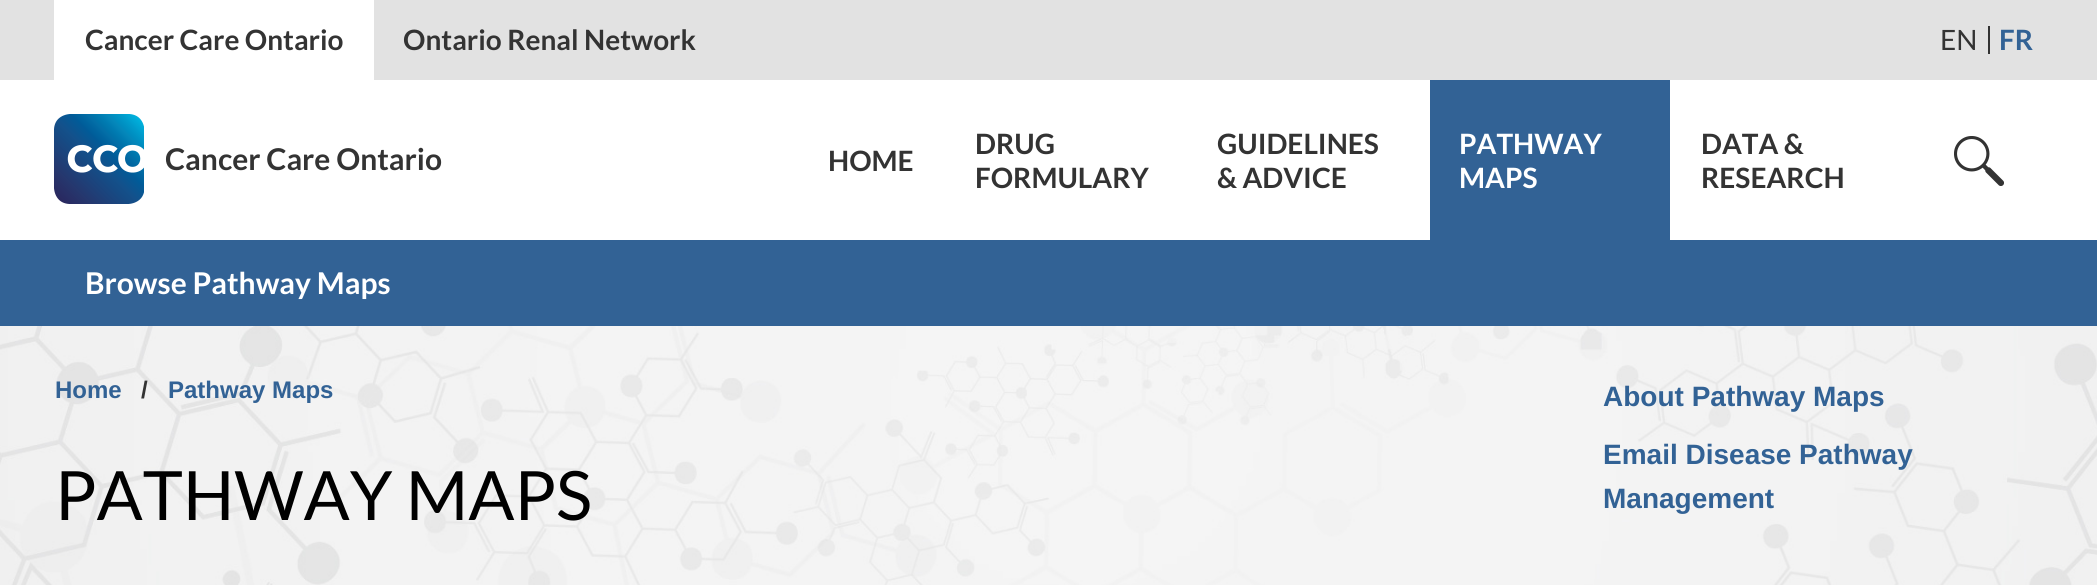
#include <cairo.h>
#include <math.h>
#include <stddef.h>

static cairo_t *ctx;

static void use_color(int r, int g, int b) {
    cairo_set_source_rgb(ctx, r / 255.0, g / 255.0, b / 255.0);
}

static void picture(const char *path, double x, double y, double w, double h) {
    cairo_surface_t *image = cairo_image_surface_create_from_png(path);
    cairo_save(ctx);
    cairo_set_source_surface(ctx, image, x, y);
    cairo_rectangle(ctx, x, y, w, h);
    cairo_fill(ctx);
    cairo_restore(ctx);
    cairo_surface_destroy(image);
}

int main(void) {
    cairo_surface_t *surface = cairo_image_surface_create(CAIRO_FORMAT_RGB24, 2097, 585);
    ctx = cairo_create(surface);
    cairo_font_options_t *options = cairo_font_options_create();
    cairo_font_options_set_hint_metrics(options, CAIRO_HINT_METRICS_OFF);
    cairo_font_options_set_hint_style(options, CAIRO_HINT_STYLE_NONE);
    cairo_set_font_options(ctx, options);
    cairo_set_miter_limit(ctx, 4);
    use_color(255, 255, 255);
    cairo_paint(ctx);
    use_color(226, 226, 226);
    cairo_rectangle(ctx, 0, 0, 2097, 80);
    cairo_fill(ctx);
    use_color(255, 255, 255);
    cairo_rectangle(ctx, 54, 0, 320, 80);
    cairo_fill(ctx);
    cairo_select_font_face(ctx, "Lato", CAIRO_FONT_SLANT_NORMAL, CAIRO_FONT_WEIGHT_BOLD);
    cairo_set_font_size(ctx, 28);
    use_color(51, 51, 51);
    cairo_move_to(ctx, 85, 50);
    cairo_show_text(ctx, "Cancer Care Ontario");
    cairo_move_to(ctx, 403, 50);
    cairo_show_text(ctx, "Ontario Renal Network");
    cairo_select_font_face(ctx, "Lato", CAIRO_FONT_SLANT_NORMAL, CAIRO_FONT_WEIGHT_NORMAL);
    cairo_move_to(ctx, 1940, 50);
    cairo_show_text(ctx, "EN");
    cairo_rectangle(ctx, 1988, 26, 2, 28);
    cairo_fill(ctx);
    cairo_select_font_face(ctx, "Lato", CAIRO_FONT_SLANT_NORMAL, CAIRO_FONT_WEIGHT_BOLD);
    use_color(50, 98, 149);
    cairo_move_to(ctx, 1999, 50);
    cairo_show_text(ctx, "FR");
    cairo_rectangle(ctx, 1430, 80, 240, 160);
    cairo_fill(ctx);
    use_color(255, 255, 255);
    cairo_move_to(ctx, 1459, 154);
    cairo_show_text(ctx, "PATHWAY");
    cairo_move_to(ctx, 1459, 188);
    cairo_show_text(ctx, "MAPS");
    use_color(50, 98, 149);
    cairo_rectangle(ctx, 0, 240, 2097, 86);
    cairo_fill(ctx);
    cairo_set_font_size(ctx, 30);
    use_color(255, 255, 255);
    cairo_move_to(ctx, 85, 294);
    cairo_show_text(ctx, "Browse Pathway Maps");
    cairo_set_font_size(ctx, 28);
    use_color(51, 51, 51);
    cairo_move_to(ctx, 828, 171);
    cairo_show_text(ctx, "HOME");
    cairo_move_to(ctx, 975, 154);
    cairo_show_text(ctx, "DRUG");
    cairo_move_to(ctx, 975, 188);
    cairo_show_text(ctx, "FORMULARY");
    cairo_move_to(ctx, 1217, 154);
    cairo_show_text(ctx, "GUIDELINES");
    cairo_move_to(ctx, 1217, 188);
    cairo_show_text(ctx, "& ADVICE");
    cairo_move_to(ctx, 1701, 154);
    cairo_show_text(ctx, "DATA &");
    cairo_move_to(ctx, 1701, 188);
    cairo_show_text(ctx, "RESEARCH");
    picture("img1.png", 1954, 136, 50, 50);
    picture("img2.png", 54, 114, 90, 90);
    cairo_set_font_size(ctx, 30);
    cairo_move_to(ctx, 165, 170);
    cairo_show_text(ctx, "Cancer Care Ontario");
    picture("img3.png", 0, 326, 2097, 259);
    cairo_select_font_face(ctx, "Liberation Sans", CAIRO_FONT_SLANT_NORMAL, CAIRO_FONT_WEIGHT_BOLD);
    cairo_set_font_size(ctx, 24);
    use_color(50, 98, 149);
    cairo_move_to(ctx, 55, 398);
    cairo_show_text(ctx, "Home");
    use_color(51, 51, 51);
    cairo_move_to(ctx, 141, 398);
    cairo_show_text(ctx, "/");
    use_color(50, 98, 149);
    cairo_move_to(ctx, 168, 398);
    cairo_show_text(ctx, "Pathway Maps");
    cairo_select_font_face(ctx, "Lato", CAIRO_FONT_SLANT_NORMAL, CAIRO_FONT_WEIGHT_NORMAL);
    cairo_set_font_size(ctx, 68);
    use_color(0, 0, 0);
    cairo_move_to(ctx, 55, 520);
    cairo_show_text(ctx, "PATHWAY MAPS");
    cairo_select_font_face(ctx, "Liberation Sans", CAIRO_FONT_SLANT_NORMAL, CAIRO_FONT_WEIGHT_BOLD);
    cairo_set_font_size(ctx, 28);
    use_color(50, 98, 149);
    cairo_move_to(ctx, 1603, 406);
    cairo_show_text(ctx, "About Pathway Maps");
    cairo_move_to(ctx, 1603, 464);
    cairo_show_text(ctx, "Email Disease Pathway");
    cairo_move_to(ctx, 1603, 508);
    cairo_show_text(ctx, "Management");
    cairo_surface_write_to_png(surface, "result.png");
    cairo_font_options_destroy(options);
    cairo_destroy(ctx);
    cairo_surface_destroy(surface);
    return 0;
}
